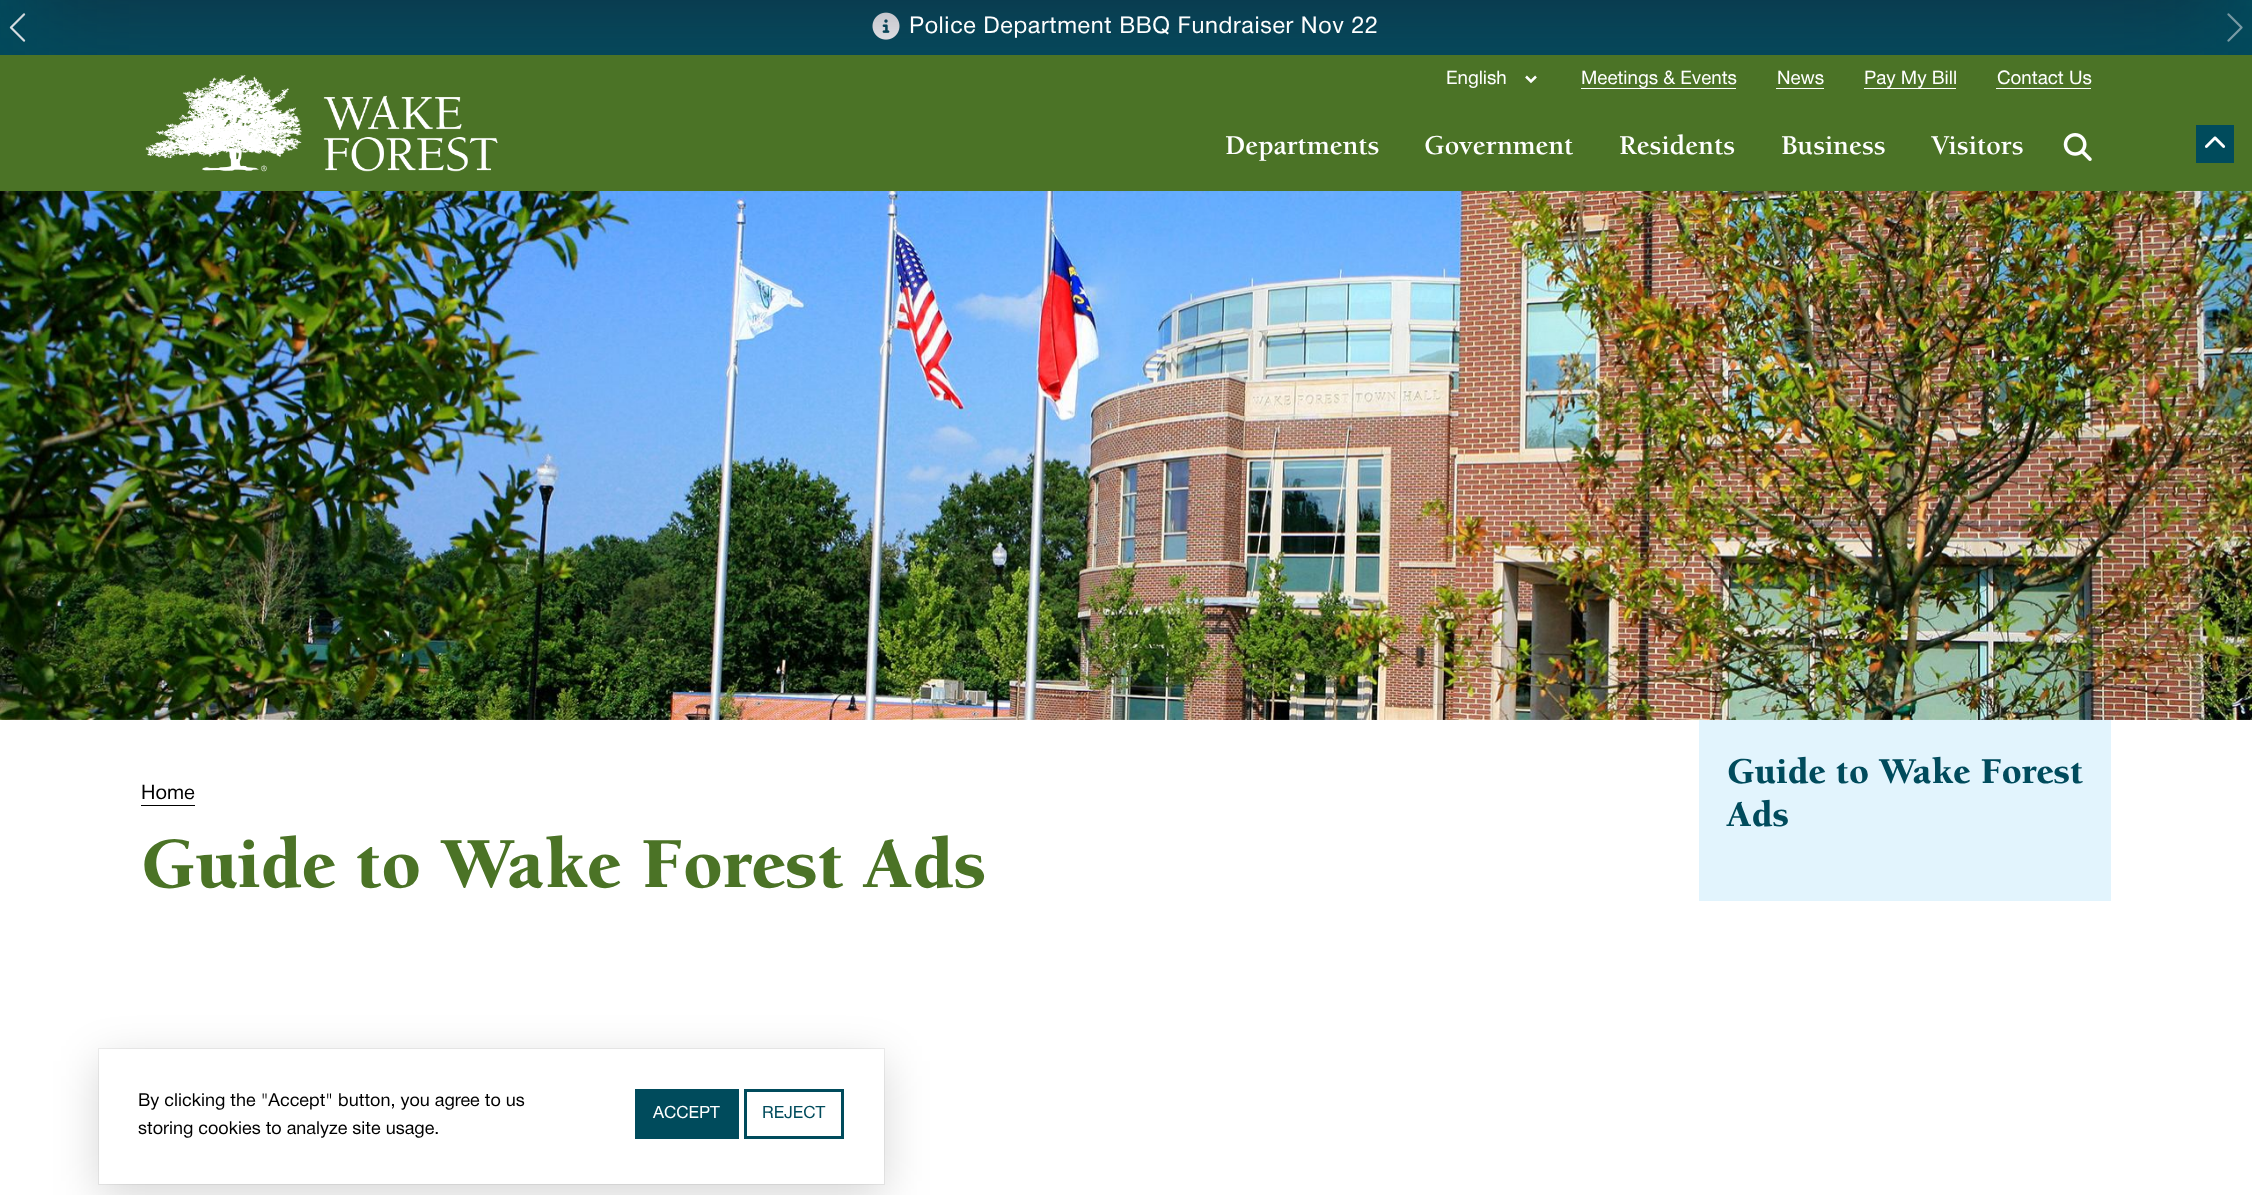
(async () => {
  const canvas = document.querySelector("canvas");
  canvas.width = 2252;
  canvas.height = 1195;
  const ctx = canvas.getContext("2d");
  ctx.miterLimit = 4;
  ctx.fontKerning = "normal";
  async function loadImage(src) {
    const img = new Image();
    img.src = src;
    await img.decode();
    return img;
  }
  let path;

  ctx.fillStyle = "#ffffff";
  ctx.fillRect(0, 0, 2252, 1195);
  ctx.fillStyle = "#004b5c";
  ctx.fillRect(0, 0, 2252, 55);
  ctx.drawImage(await loadImage("img/1.png"), 9, 13, 17, 29);
  ctx.drawImage(await loadImage("img/2.png"), 872, 12, 28, 28);
  ctx.drawImage(await loadImage("img/3.png"), 2227, 13, 16, 29);
  ctx.fillStyle = "rgba(0, 0, 0, 0.3)";
  ctx.filter = "blur(37.5px)";
  ctx.beginPath();
  ctx.rect(38, -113, 2177, 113);
  ctx.fill();
  ctx.filter = "none";
  ctx.drawImage(await loadImage("img/7.png"), 0, 191, 2252, 529);
  ctx.fillStyle = "rgba(50, 50, 93, 0.25)";
  ctx.filter = "blur(62.5px)";
  ctx.beginPath();
  ctx.rect(25, -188, 2203, 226);
  ctx.fill();
  ctx.filter = "none";
  ctx.fillStyle = "#4b7326";
  ctx.fillRect(0, 55, 2252, 136);
  ctx.fillStyle = "#004b5c";
  ctx.fillRect(2196, 125, 38, 38);
  ctx.drawImage(await loadImage("img/4.png"), 2205, 136, 21, 12);
  ctx.drawImage(await loadImage("img/5.png"), 145, 75, 353, 97);
  path = new Path2D("M1526 76.5L1531 81.5L1536 76.5");
  ctx.strokeStyle = "#ffffff";
  ctx.lineWidth = 2.5;
  ctx.stroke(path);
  for (const [x, y, w, h, color] of [
    [1581, 88, 155, 1, "#ffffff"],
    [1776, 88, 48, 1, "#ffffff"],
    [1864, 88, 92, 1, "#ffffff"],
    [1996, 88, 95, 1, "#ffffff"],
  ]) {
    ctx.fillStyle = color;
    ctx.fillRect(x, y, w, h);
  }
  ctx.drawImage(await loadImage("img/6.png"), 2063, 133, 29, 28);
  ctx.fillStyle = "#000000";
  ctx.fillRect(141, 805, 54, 1);
  ctx.fillStyle = "#e2f4fd";
  ctx.fillRect(1699, 720, 412, 181);
  ctx.strokeStyle = "#f0f0f0";
  ctx.lineWidth = 1;
  ctx.strokeRect(98.5, 1048.5, 786, 136);
  ctx.save();
  path = new Path2D("M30 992H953V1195H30ZM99 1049H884V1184H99Z");
  ctx.clip(path, "evenodd");
  ctx.fillStyle = "rgba(0, 0, 0, 0.16)";
  ctx.filter = "blur(22.5px)";
  ctx.beginPath();
  ctx.rect(99, 1061, 785, 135);
  ctx.fill();
  ctx.filter = "none";
  ctx.restore();
  ctx.fillStyle = "rgba(255, 255, 255, 0.75)";
  ctx.fillRect(99, 1070, 785, 114);
  ctx.fillStyle = "#004b5c";
  ctx.fillRect(635, 1089, 104, 50);
  ctx.strokeStyle = "#004b5c";
  ctx.lineWidth = 3;
  ctx.strokeRect(745.5, 1090.5, 97, 47);
  ctx.letterSpacing = "0.6px";
  ctx.font = "23.25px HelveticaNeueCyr";
  ctx.fillStyle = "#ffffff";
  ctx.fillText("Police Department BBQ Fundraiser Nov 22", 909, 33);
  ctx.letterSpacing = "0px";
  ctx.font = "18.75px HelveticaNeueCyr";
  for (const [text, x, y] of [
    ["English", 1446, 84],
    ["Meetings & Events", 1581, 84],
    ["News", 1777, 84],
    ["Pay My Bill", 1864, 84],
    ["Contact Us", 1997, 84],
  ]) {
    ctx.fillText(text, x, y);
  }
  ctx.font = "bold 28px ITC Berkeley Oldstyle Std";
  for (const [text, x, y] of [
    ["Departments", 1225, 154],
    ["Government", 1424, 154],
    ["Residents", 1619, 154],
    ["Business", 1781, 154],
    ["Visitors", 1931, 154],
  ]) {
    ctx.fillText(text, x, y);
  }
  ctx.font = "20px HelveticaNeueCyr";
  ctx.fillStyle = "#000000";
  ctx.fillText("Home", 141, 799);
  ctx.font = "900 73.5px ITC Berkeley Oldstyle Std";
  ctx.fillStyle = "#4b7326";
  ctx.fillText("Guide to Wake Forest Ads", 141, 887);
  ctx.font = "900 37.25px ITC Berkeley Oldstyle Std";
  ctx.fillStyle = "#004b5c";
  ctx.fillText("Guide to Wake Forest", 1727, 783);
  ctx.fillText("Ads", 1727, 826);
  ctx.font = "18px HelveticaNeueCyr";
  ctx.fillStyle = "#000000";
  ctx.fillText("By clicking the \"Accept\" button, you agree to us", 138, 1106);
  ctx.fillText("storing cookies to analyze site usage.", 138, 1134);
  ctx.font = "17px HelveticaNeueCyr";
  ctx.fillStyle = "#ffffff";
  ctx.fillText("ACCEPT", 653, 1118);
  ctx.fillStyle = "#004b5c";
  ctx.fillText("REJECT", 762, 1118);
})();
